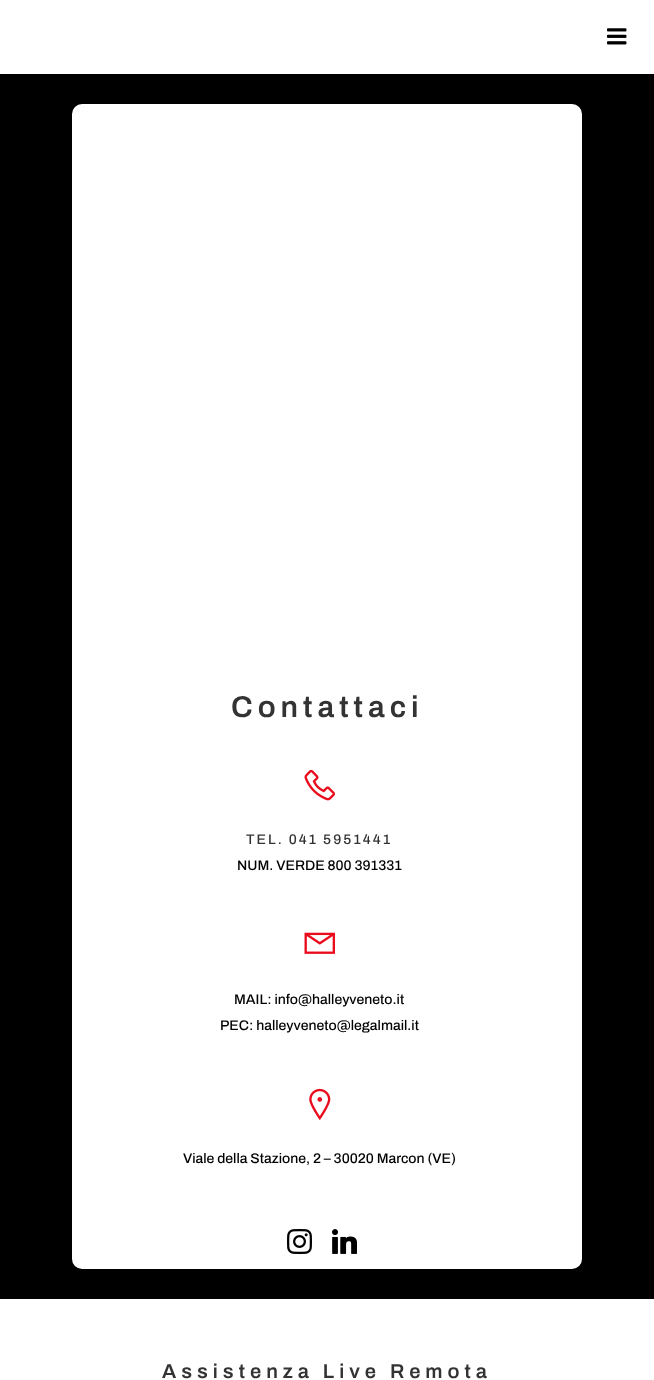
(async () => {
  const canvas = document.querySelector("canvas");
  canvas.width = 654;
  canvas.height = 1380;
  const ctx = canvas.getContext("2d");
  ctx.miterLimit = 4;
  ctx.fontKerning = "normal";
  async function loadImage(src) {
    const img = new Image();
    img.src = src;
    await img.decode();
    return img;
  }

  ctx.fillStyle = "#ffffff";
  ctx.fillRect(0, 0, 654, 1380);
  ctx.drawImage(await loadImage("img/1.png"), 607, 28, 20, 17);
  ctx.fillStyle = "#000000";
  ctx.fillRect(0, 74, 654, 1225);
  ctx.fillStyle = "#ffffff";
  ctx.beginPath();
  ctx.roundRect(72, 104, 510, 1165, 10);
  ctx.fill();
  ctx.drawImage(await loadImage("img/2.png"), 304, 769, 31, 32);
  ctx.drawImage(await loadImage("img/3.png"), 304, 932, 31, 22);
  ctx.drawImage(await loadImage("img/4.png"), 309, 1088, 22, 33);
  ctx.drawImage(await loadImage("img/5.png"), 287, 1229, 25, 25);
  ctx.drawImage(await loadImage("img/6.png"), 332, 1229, 25, 25);
  ctx.letterSpacing = "5px";
  ctx.font = "600 30px Archivo";
  ctx.fillStyle = "#333333";
  ctx.fillText("Contattaci", 231, 717);
  ctx.letterSpacing = "2px";
  ctx.font = "500 14px Archivo";
  ctx.fillText("TEL. 041 5951441", 246, 844);
  ctx.letterSpacing = "0px";
  ctx.fillStyle = "#000000";
  for (const [text, x, y] of [
    ["NUM. VERDE 800 391331", 237, 870],
    ["MAIL: info@halleyveneto.it", 234, 1004],
    ["PEC: halleyveneto@legalmail.it", 220, 1030],
    ["Viale della Stazione, 2 – 30020 Marcon (VE)", 183, 1163],
  ]) {
    ctx.fillText(text, x, y);
  }
  ctx.letterSpacing = "5px";
  ctx.font = "600 20px Archivo";
  ctx.fillStyle = "#333333";
  ctx.fillText("Assistenza Live Remota", 162, 1378);
})();
